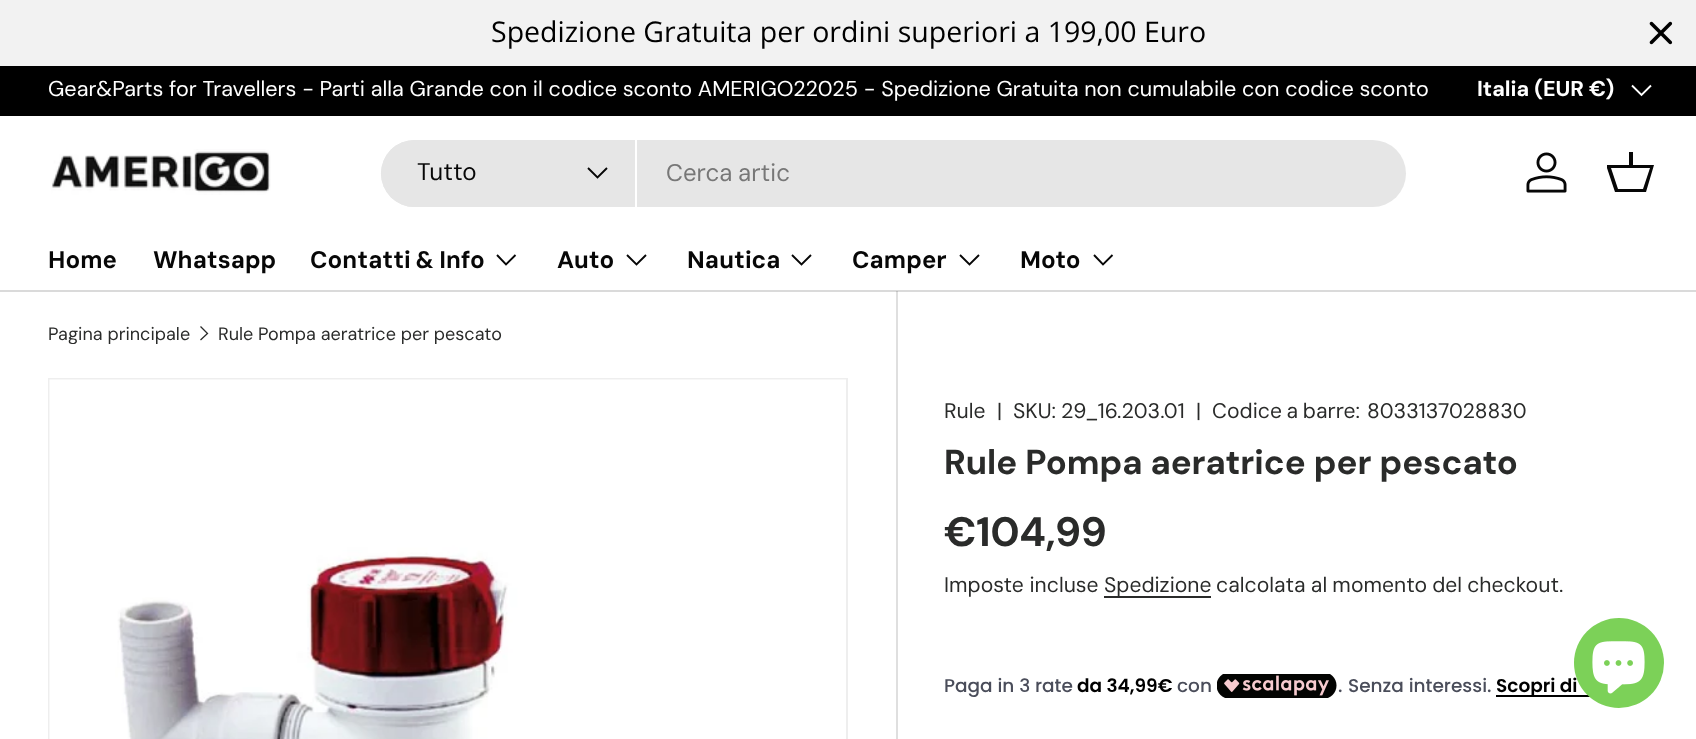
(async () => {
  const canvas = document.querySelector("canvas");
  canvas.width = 1696;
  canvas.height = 739;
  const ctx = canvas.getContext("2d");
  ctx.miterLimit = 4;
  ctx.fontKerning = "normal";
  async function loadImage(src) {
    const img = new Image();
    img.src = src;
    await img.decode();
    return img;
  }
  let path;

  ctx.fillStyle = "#ffffff";
  ctx.fillRect(0, 0, 1696, 739);
  ctx.fillStyle = "#dadada";
  ctx.fillRect(0, 290, 1696, 2);
  ctx.fillStyle = "#f2f2f2";
  ctx.fillRect(0, 0, 1696, 66);
  ctx.drawImage(await loadImage("img/1.png"), 1649, 21, 24, 24);
  ctx.fillStyle = "#000000";
  ctx.fillRect(0, 66, 1696, 50);
  path = new Path2D("M1651 85.5L1641.5 95L1632 85.5");
  ctx.strokeStyle = "#ffffff";
  ctx.lineWidth = 1.9;
  ctx.stroke(path);
  ctx.drawImage(await loadImage("img/2.png"), 51, 149, 220, 46);
  ctx.fillStyle = "#e6e6e6";
  ctx.beginPath();
  ctx.roundRect(381, 140, 1025, 67, 33.5);
  ctx.fill();
  ctx.beginPath();
  ctx.roundRect(381, 140, 255, 67, [33.5, 0, 0, 33.5]);
  ctx.fill();
  ctx.fillStyle = "#ffffff";
  ctx.fillRect(635, 140, 2, 67);
  path = new Path2D("M607 168L597.5 177.5L588 168");
  ctx.strokeStyle = "#070707";
  ctx.stroke(path);
  ctx.drawImage(await loadImage("img/3.png"), 1526, 152, 41, 41);
  ctx.save();
  ctx.beginPath();
  ctx.rect(1607, 149, 48, 48);
  ctx.clip();
  ctx.fillStyle = "#070707";
  path = new Path2D("M1629 165V152H1633V165H1654L1646 192H1615L1606 165ZM1611 168L1618 189H1643L1650 168Z");
  ctx.fill(path);
  ctx.restore();
  path = new Path2D("M515.5 255L506 264.5L497 255");
  ctx.stroke(path);
  path = new Path2D("M646 255L636.5 264.5L627 255");
  ctx.stroke(path);
  path = new Path2D("M811 255L801.5 264.5L792 255");
  ctx.stroke(path);
  path = new Path2D("M979 255L969.5 264.5L960 255");
  ctx.stroke(path);
  path = new Path2D("M1112.5 255L1103 264.5L1094 255");
  ctx.stroke(path);
  path = new Path2D("M200.5 326.5L207.5 333.5L200.5 340");
  ctx.strokeStyle = "#2a2b2a";
  ctx.lineWidth = 1.3;
  ctx.stroke(path);
  ctx.strokeStyle = "#eeeeee";
  ctx.lineWidth = 2;
  ctx.strokeRect(49, 379, 798, 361);
  ctx.drawImage(await loadImage("img/4.png"), 49, 379, 797, 360);
  for (const [x, y, w, h, color] of [
    [896, 291, 2, 448, "#dfdfdf"],
    [896, 291, 2, 1, "#bfbfbf"],
    [1104, 596, 107, 2, "#2a2b2a"],
  ]) {
    ctx.fillStyle = color;
    ctx.fillRect(x, y, w, h);
  }
  ctx.drawImage(await loadImage("img/5.png"), 1217, 674, 120, 24);
  ctx.fillStyle = "#000000";
  ctx.fillRect(1496, 695, 94, 2);
  ctx.font = "28.5px Open Sans";
  ctx.fillText("Spedizione Gratuita per ordini superiori a 199,00 Euro", 491, 42);
  ctx.font = "21.6px 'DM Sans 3'";
  ctx.fillStyle = "#ffffff";
  ctx.fillText("Gear&Parts for Travellers - Parti alla Grande con il codice sconto AMERIGO22025 - Spedizione Gratuita non cumulabile con codice sconto", 48, 96);
  ctx.font = "bold 21.6px 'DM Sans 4'";
  ctx.fillText("Italia (EUR €)", 1477, 96);
  ctx.font = "24px 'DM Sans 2'";
  ctx.fillStyle = "#070707";
  ctx.fillText("Tutto", 417, 180);
  ctx.wordSpacing = "-1px";
  ctx.fillStyle = "#777777";
  ctx.fillText("Cerca artic", 666, 181);
  ctx.wordSpacing = "0px";
  ctx.font = "bold 24px 'DM Sans 3'";
  ctx.fillStyle = "#070707";
  ctx.fillText("Home", 48, 268);
  ctx.fillText("Whatsapp", 153, 268);
  ctx.wordSpacing = "-1px";
  ctx.fillText("Contatti & Info", 310, 268);
  ctx.wordSpacing = "0px";
  for (const [text, x, y] of [
    ["Auto", 557, 268],
    ["Nautica", 687, 268],
    ["Camper", 852, 268],
    ["Moto", 1020, 268],
  ]) {
    ctx.fillText(text, x, y);
  }
  ctx.save();
  ctx.beginPath();
  ctx.rect(48, 326, 143, 18);
  ctx.clip();
  ctx.font = "18px DM Sans";
  ctx.fillStyle = "#2a2b2a";
  ctx.fillText("Pagina principale", 48, 340);
  ctx.restore();
  ctx.font = "18px DM Sans";
  ctx.fillStyle = "#2a2b2a";
  ctx.fillText("Rule Pompa aeratrice per pescato", 218, 340);
  ctx.font = "21.1px 'DM Sans 2'";
  for (const [text, x, y] of [
    ["Rule", 944, 418],
    ["|", 997, 418],
    ["SKU:", 1013, 418],
    ["29_16.203.01", 1061, 418],
    ["|", 1196, 418],
  ]) {
    ctx.fillText(text, x, y);
  }
  ctx.wordSpacing = "-1px";
  ctx.fillText("Codice a barre:", 1212, 418);
  ctx.wordSpacing = "0px";
  ctx.fillText("8033137028830", 1367, 418);
  ctx.font = "bold 34.7px DM Sans";
  ctx.fillText("Rule Pompa aeratrice per pescato", 944, 474);
  ctx.font = "bold 41px 'DM Sans 2'";
  ctx.fillText("€104,99", 944, 546);
  ctx.font = "21.1px 'DM Sans 2'";
  ctx.fillText("Imposte incluse", 944, 592);
  ctx.fillText("Spedizione", 1104, 592);
  ctx.wordSpacing = "-0.5px";
  ctx.fillText("calcolata al momento del checkout.", 1216, 592);
  ctx.wordSpacing = "0px";
  ctx.font = "500 18.5px Poppins";
  ctx.fillStyle = "#4a4d5a";
  ctx.fillText("Paga in 3 rate", 944, 692);
  ctx.font = "600 18.5px Poppins";
  ctx.fillStyle = "#000000";
  ctx.fillText("da 34,99€", 1077, 692);
  ctx.font = "500 18.5px Poppins";
  ctx.fillStyle = "#4a4d5a";
  for (const [text, x, y] of [
    ["con", 1177, 692],
    [".", 1338, 692],
    ["Senza interessi.", 1348, 692],
  ]) {
    ctx.fillText(text, x, y);
  }
  ctx.font = "600 18.5px Poppins";
  ctx.fillStyle = "#000000";
  ctx.fillText("Scopri di", 1496, 692);
  ctx.fillStyle = "#7cd158";
  ctx.beginPath();
  ctx.arc(1619, 663, 45, 0, Math.PI * 2);
  ctx.fill();
  ctx.drawImage(await loadImage("img/6.png"), 1592, 641, 53, 53);
})();
